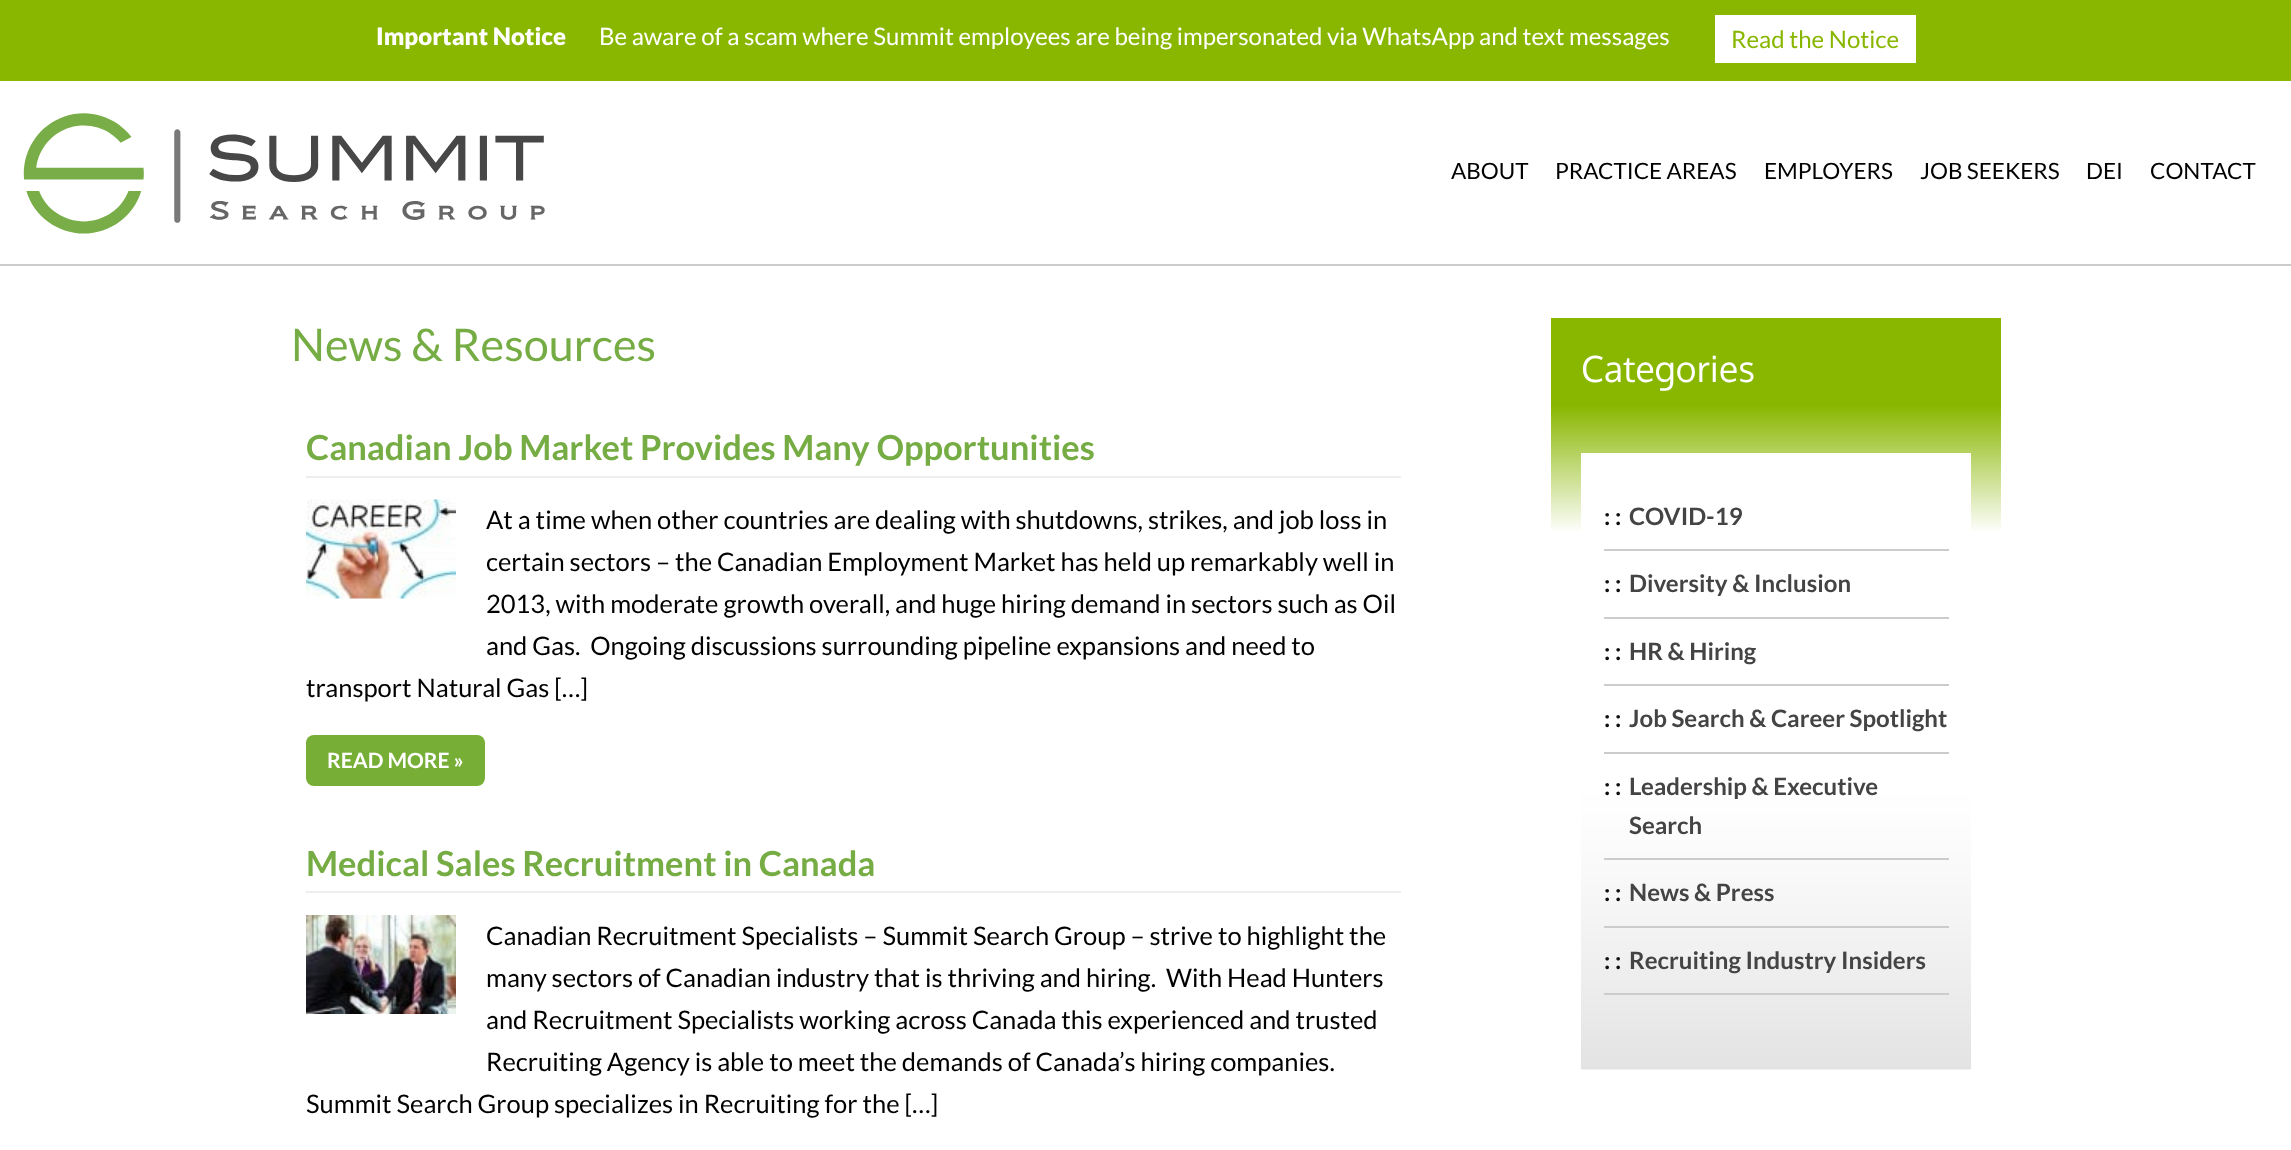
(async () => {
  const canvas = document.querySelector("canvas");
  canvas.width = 2291;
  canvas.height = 1150;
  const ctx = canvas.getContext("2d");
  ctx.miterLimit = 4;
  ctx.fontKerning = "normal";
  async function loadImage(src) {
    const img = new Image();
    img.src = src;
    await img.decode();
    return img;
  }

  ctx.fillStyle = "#ffffff";
  ctx.fillRect(0, 0, 2291, 1150);
  for (const [x, y, w, h, color] of [
    [0, 0, 2291, 81, "#89b700"],
    [1715, 15, 201, 48, "#ffffff"],
    [0, 264, 2291, 2, "#cccccc"],
  ]) {
    ctx.fillStyle = color;
    ctx.fillRect(x, y, w, h);
  }
  ctx.drawImage(await loadImage("img/1.png"), 23, 113, 522, 121);
  ctx.fillStyle = "#eeeeee";
  ctx.fillRect(306, 476, 1095, 2);
  ctx.drawImage(await loadImage("img/2.png"), 306, 499, 150, 100);
  ctx.fillStyle = "#77ae36";
  ctx.beginPath();
  ctx.roundRect(306, 735, 179, 51, 8);
  ctx.fill();
  ctx.fillStyle = "#eeeeee";
  ctx.fillRect(306, 891, 1095, 2);
  ctx.drawImage(await loadImage("img/3.png"), 306, 915, 150, 99);
  ctx.drawImage(await loadImage("img/4.png"), 1551, 318, 450, 213);
  ctx.drawImage(await loadImage("img/5.png"), 1581, 453, 390, 617);
  for (const [x, y, w, h, color] of [
    [1604, 549, 345, 2, "#cccccc"],
    [1604, 617, 345, 2, "#cccccc"],
    [1604, 684, 345, 2, "#cccccc"],
    [1604, 752, 345, 2, "#cccccc"],
    [1604, 858, 345, 2, "#cccccc"],
    [1604, 926, 345, 2, "#cccccc"],
    [1604, 993, 345, 2, "#cccccc"],
  ]) {
    ctx.fillStyle = color;
    ctx.fillRect(x, y, w, h);
  }
  ctx.font = "900 24px Lato";
  ctx.fillStyle = "#ffffff";
  ctx.fillText("Important Notice", 376, 45);
  ctx.font = "24px Lato";
  ctx.fillText("Be aware of a scam where Summit employees are being impersonated via WhatsApp and text messages", 599, 45);
  ctx.fillStyle = "#89b700";
  ctx.fillText("Read the Notice", 1731, 48);
  ctx.font = "22.5px Lato";
  ctx.fillStyle = "#000000";
  for (const [text, x, y] of [
    ["ABOUT", 1451, 179],
    ["PRACTICE AREAS", 1555, 179],
    ["EMPLOYERS", 1764, 179],
    ["JOB SEEKERS", 1920, 179],
    ["DEI", 2086, 179],
    ["CONTACT", 2150, 179],
  ]) {
    ctx.fillText(text, x, y);
  }
  ctx.font = "45px Lato";
  ctx.fillStyle = "#76ac44";
  ctx.fillText("News & Resources", 291, 361);
  ctx.font = "bold 34.5px Lato";
  ctx.fillText("Canadian Job Market Provides Many Opportunities", 306, 460);
  ctx.font = "25.5px Lato";
  ctx.fillStyle = "#000000";
  for (const [text, x, y] of [
    ["At a time when other countries are dealing with shutdowns, strikes, and job loss in", 486, 529],
    ["certain sectors – the Canadian Employment Market has held up remarkably well in", 486, 571],
    ["2013, with moderate growth overall, and huge hiring demand in sectors such as Oil", 486, 613],
    ["and Gas.  Ongoing discussions surrounding pipeline expansions and need to", 486, 655],
    ["transport Natural Gas […]", 306, 697],
  ]) {
    ctx.fillText(text, x, y);
  }
  ctx.font = "bold 21px Lato";
  ctx.fillStyle = "#ffffff";
  ctx.fillText("READ MORE »", 327, 768);
  ctx.font = "bold 34.5px Lato";
  ctx.fillStyle = "#76ac44";
  ctx.fillText("Medical Sales Recruitment in Canada", 306, 876);
  ctx.font = "25.5px Lato";
  ctx.fillStyle = "#000000";
  for (const [text, x, y] of [
    ["Canadian Recruitment Specialists – Summit Search Group – strive to highlight the", 486, 945],
    ["many sectors of Canadian industry that is thriving and hiring.  With Head Hunters", 486, 987],
    ["and Recruitment Specialists working across Canada this experienced and trusted", 486, 1029],
    ["Recruiting Agency is able to meet the demands of Canada’s hiring companies.", 486, 1071],
    ["Summit Search Group specializes in Recruiting for the […]", 306, 1113],
  ]) {
    ctx.fillText(text, x, y);
  }
  ctx.font = "36px Oxygen";
  ctx.fillStyle = "#ffffff";
  ctx.fillText("Categories", 1581, 382);
  ctx.font = "bold 24px Lato";
  ctx.fillStyle = "#0f0f0f";
  ctx.fillText(": :", 1604, 525);
  ctx.fillStyle = "#444444";
  ctx.fillText("COVID-19", 1629, 525);
  ctx.fillStyle = "#0f0f0f";
  ctx.fillText(": :", 1604, 592);
  ctx.fillStyle = "#444444";
  ctx.fillText("Diversity & Inclusion", 1629, 592);
  ctx.fillStyle = "#0f0f0f";
  ctx.fillText(": :", 1604, 660);
  ctx.fillStyle = "#444444";
  ctx.fillText("HR & Hiring", 1629, 660);
  ctx.fillStyle = "#0f0f0f";
  ctx.fillText(": :", 1604, 727);
  ctx.fillStyle = "#444444";
  ctx.fillText("Job Search & Career Spotlight", 1629, 727);
  ctx.fillStyle = "#0f0f0f";
  ctx.fillText(": :", 1604, 795);
  ctx.fillStyle = "#444444";
  ctx.fillText("Leadership & Executive", 1629, 795);
  ctx.fillText("Search", 1629, 834);
  ctx.fillStyle = "#0f0f0f";
  ctx.fillText(": :", 1604, 901);
  ctx.fillStyle = "#444444";
  ctx.fillText("News & Press", 1629, 901);
  ctx.fillStyle = "#0f0f0f";
  ctx.fillText(": :", 1604, 969);
  ctx.fillStyle = "#444444";
  ctx.fillText("Recruiting Industry Insiders", 1629, 969);
})();
